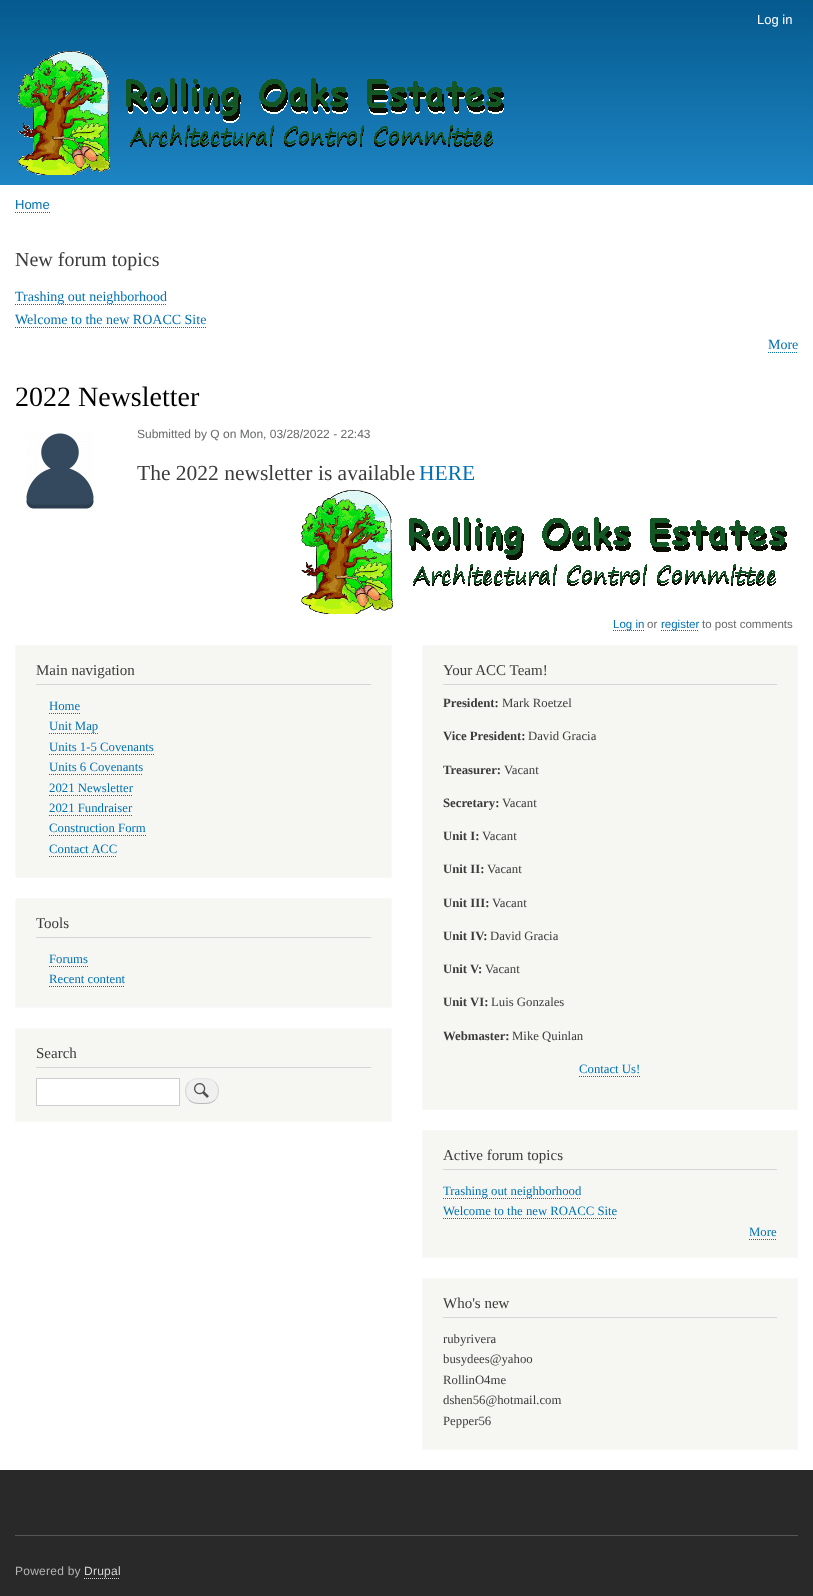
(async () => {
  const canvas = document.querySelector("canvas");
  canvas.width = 813;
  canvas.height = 1596;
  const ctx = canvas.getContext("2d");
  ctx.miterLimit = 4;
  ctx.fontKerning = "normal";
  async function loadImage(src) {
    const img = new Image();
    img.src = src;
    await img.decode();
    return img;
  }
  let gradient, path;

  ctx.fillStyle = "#ffffff";
  ctx.fillRect(0, 0, 813, 1596);
  gradient = ctx.createLinearGradient(407, 0, 407, 185);
  gradient.addColorStop(0, "#055a8e");
  gradient.addColorStop(1, "#1d84c3");
  ctx.fillStyle = gradient;
  ctx.fillRect(0, 0, 813, 185);
  ctx.drawImage(await loadImage("img/1.png"), 18, 51, 486, 124);
  path = new Path2D("M15 212.5H50");
  ctx.strokeStyle = "#0071b3";
  ctx.setLineDash([1, 1]);
  ctx.stroke(path);
  path = new Path2D("M15 304.5H167");
  ctx.stroke(path);
  path = new Path2D("M15 327.5H206");
  ctx.stroke(path);
  path = new Path2D("M768 352.5H798");
  ctx.stroke(path);
  ctx.drawImage(await loadImage("img/2.png"), 26, 433, 68, 76);
  ctx.drawImage(await loadImage("img/3.png"), 301, 490, 486, 124);
  path = new Path2D("M613 630.5H644");
  ctx.stroke(path);
  path = new Path2D("M661 630.5H699");
  ctx.stroke(path);
  ctx.fillStyle = "#f6f6f2";
  ctx.beginPath();
  ctx.rect(15.5, 645.5, 376, 232);
  ctx.fill();
  ctx.strokeStyle = "#f9f9f9";
  ctx.setLineDash([]);
  ctx.stroke();
  ctx.fillStyle = "#d6d6d6";
  ctx.fillRect(36, 684, 335, 1);
  path = new Path2D("M49 713.5H80");
  ctx.strokeStyle = "#0071b3";
  ctx.setLineDash([1, 1]);
  ctx.stroke(path);
  path = new Path2D("M49 733.5H98");
  ctx.stroke(path);
  path = new Path2D("M49 754.5H154");
  ctx.stroke(path);
  path = new Path2D("M49 774.5H143");
  ctx.stroke(path);
  path = new Path2D("M49 795.5H133");
  ctx.stroke(path);
  path = new Path2D("M49 815.5H132");
  ctx.stroke(path);
  path = new Path2D("M49 835.5H146");
  ctx.stroke(path);
  path = new Path2D("M49 856.5H117");
  ctx.stroke(path);
  ctx.fillStyle = "#f6f6f2";
  ctx.beginPath();
  ctx.rect(15.5, 898.5, 376, 109);
  ctx.fill();
  ctx.strokeStyle = "#f9f9f9";
  ctx.setLineDash([]);
  ctx.stroke();
  ctx.fillStyle = "#d6d6d6";
  ctx.fillRect(36, 937, 335, 1);
  path = new Path2D("M49 966.5H88");
  ctx.strokeStyle = "#0071b3";
  ctx.setLineDash([1, 1]);
  ctx.stroke(path);
  path = new Path2D("M49 986.5H125");
  ctx.stroke(path);
  ctx.fillStyle = "#f6f6f2";
  ctx.beginPath();
  ctx.rect(15.5, 1028.5, 376, 93);
  ctx.fill();
  ctx.strokeStyle = "#f9f9f9";
  ctx.setLineDash([]);
  ctx.stroke();
  ctx.fillStyle = "#d6d6d6";
  ctx.fillRect(36, 1067, 335, 1);
  ctx.fillStyle = "#ffffff";
  ctx.beginPath();
  ctx.rect(36.5, 1078.5, 143, 27);
  ctx.fill();
  ctx.strokeStyle = "#cccccc";
  ctx.stroke();
  ctx.fillStyle = "#f0f0f0";
  ctx.beginPath();
  ctx.roundRect(185, 1078, 34, 26, 13);
  ctx.fill();
  ctx.drawImage(await loadImage("img/4.png"), 194, 1083, 15, 15);
  path = new Path2D("M189 1082C193 1078.5 197 1078.5 202 1078.5C207 1078.5 211 1078.5 215 1082");
  ctx.strokeStyle = "#e4e4e4";
  ctx.stroke(path);
  path = new Path2D("M215 1082C219.5 1087 219.5 1095 215 1100");
  ctx.strokeStyle = "#d2d2d2";
  ctx.stroke(path);
  path = new Path2D("M215 1100C211 1103.5 207 1103.5 202 1103.5C197 1103.5 193 1103.5 189 1100");
  ctx.strokeStyle = "#b4b4b4";
  ctx.stroke(path);
  path = new Path2D("M189 1100C184.5 1095 184.5 1087 189 1082");
  ctx.strokeStyle = "#d2d2d2";
  ctx.stroke(path);
  ctx.fillStyle = "#f6f6f2";
  ctx.beginPath();
  ctx.rect(422.5, 645.5, 375, 464);
  ctx.fill();
  ctx.strokeStyle = "#f9f9f9";
  ctx.stroke();
  ctx.fillStyle = "#d6d6d6";
  ctx.fillRect(443, 684, 334, 1);
  path = new Path2D("M579 1076.5H640");
  ctx.strokeStyle = "#0071b3";
  ctx.setLineDash([1, 1]);
  ctx.stroke(path);
  ctx.fillStyle = "#f6f6f2";
  ctx.beginPath();
  ctx.rect(422.5, 1130.5, 375, 127);
  ctx.fill();
  ctx.strokeStyle = "#f9f9f9";
  ctx.setLineDash([]);
  ctx.stroke();
  ctx.fillStyle = "#d6d6d6";
  ctx.fillRect(443, 1169, 334, 1);
  path = new Path2D("M443 1198.5H581");
  ctx.strokeStyle = "#0071b3";
  ctx.setLineDash([1, 1]);
  ctx.stroke(path);
  path = new Path2D("M443 1218.5H617");
  ctx.stroke(path);
  path = new Path2D("M749 1239.5H777");
  ctx.stroke(path);
  ctx.fillStyle = "#f6f6f2";
  ctx.beginPath();
  ctx.rect(422.5, 1278.5, 375, 171);
  ctx.fill();
  ctx.strokeStyle = "#f9f9f9";
  ctx.setLineDash([]);
  ctx.stroke();
  for (const [x, y, w, h, color] of [
    [443, 1317, 334, 1, "#d6d6d6"],
    [0, 1470, 813, 126, "#292929"],
    [15, 1535, 783, 1, "#555555"],
  ]) {
    ctx.fillStyle = color;
    ctx.fillRect(x, y, w, h);
  }
  path = new Path2D("M84 1578.5H120");
  ctx.strokeStyle = "#d4d4d4";
  ctx.setLineDash([1, 1]);
  ctx.stroke(path);
  ctx.font = "13px Liberation Sans";
  ctx.fillStyle = "#fffeff";
  ctx.fillText("Log in", 757, 24);
  ctx.fillStyle = "#0071b3";
  ctx.fillText("Home", 15, 209);
  ctx.font = "20px Liberation Serif";
  ctx.fillStyle = "#3b3b3b";
  ctx.fillText("New forum topics", 15, 266);
  ctx.font = "14px Liberation Serif";
  ctx.fillStyle = "#0071b3";
  for (const [text, x, y] of [
    ["Trashing out neighborhood", 15, 301],
    ["Welcome to the new ROACC Site", 15, 324],
    ["More", 768, 349],
  ]) {
    ctx.fillText(text, x, y);
  }
  ctx.font = "28px Liberation Serif";
  ctx.fillStyle = "#000000";
  ctx.fillText("2022 Newsletter", 15, 406);
  ctx.font = "12px Liberation Sans";
  ctx.fillStyle = "#68696b";
  ctx.fillText("Submitted by Q on Mon, 03/28/2022 - 22:43", 137, 438);
  ctx.font = "21.5px Liberation Serif";
  ctx.fillStyle = "#3b3b3b";
  ctx.fillText("The 2022 newsletter is available", 137, 480);
  ctx.fillStyle = "#0071b3";
  ctx.fillText("HERE", 419, 480);
  ctx.font = "11.5px Liberation Sans";
  ctx.fillText("Log in", 613, 628);
  ctx.fillStyle = "#68696b";
  ctx.fillText("or", 647, 628);
  ctx.fillStyle = "#0071b3";
  ctx.fillText("register", 661, 628);
  ctx.fillStyle = "#68696b";
  ctx.fillText("to post comments", 702, 628);
  ctx.font = "15px Liberation Serif";
  ctx.fillStyle = "#3b3b3b";
  ctx.fillText("Main navigation", 36, 675);
  ctx.font = "12.75px Liberation Serif";
  ctx.fillStyle = "#0071b3";
  for (const [text, x, y] of [
    ["Home", 49, 710],
    ["Unit Map", 49, 730],
    ["Units 1-5 Covenants", 49, 751],
    ["Units 6 Covenants", 49, 771],
    ["2021 Newsletter", 49, 792],
    ["2021 Fundraiser", 49, 812],
    ["Construction Form", 49, 832],
    ["Contact ACC", 49, 853],
  ]) {
    ctx.fillText(text, x, y);
  }
  ctx.font = "15px Liberation Serif";
  ctx.fillStyle = "#3b3b3b";
  ctx.fillText("Tools", 36, 928);
  ctx.font = "12.75px Liberation Serif";
  ctx.fillStyle = "#0071b3";
  ctx.fillText("Forums", 49, 963);
  ctx.fillText("Recent content", 49, 983);
  ctx.font = "15px Liberation Serif";
  ctx.fillStyle = "#3b3b3b";
  ctx.fillText("Search", 36, 1058);
  ctx.fillText("Your ACC Team!", 443, 675);
  ctx.font = "bold 12.75px Liberation Serif";
  ctx.fillText("President:", 443, 707);
  ctx.font = "12.75px Liberation Serif";
  ctx.fillText("Mark Roetzel", 502, 707);
  ctx.font = "bold 12.75px Liberation Serif";
  ctx.fillText("Vice President:", 443, 740);
  ctx.font = "12.75px Liberation Serif";
  ctx.fillText("David Gracia", 528, 740);
  ctx.font = "bold 12.75px Liberation Serif";
  ctx.fillText("Treasurer:", 443, 774);
  ctx.font = "12.75px Liberation Serif";
  ctx.fillText("Vacant", 504, 774);
  ctx.font = "bold 12.75px Liberation Serif";
  ctx.fillText("Secretary:", 443, 807);
  ctx.font = "12.75px Liberation Serif";
  ctx.fillText("Vacant", 502, 807);
  ctx.font = "bold 12.75px Liberation Serif";
  ctx.fillText("Unit I:", 443, 840);
  ctx.font = "12.75px Liberation Serif";
  ctx.fillText("Vacant", 482, 840);
  ctx.font = "bold 12.75px Liberation Serif";
  ctx.fillText("Unit II:", 443, 873);
  ctx.font = "12.75px Liberation Serif";
  ctx.fillText("Vacant", 487, 873);
  ctx.font = "bold 12.75px Liberation Serif";
  ctx.fillText("Unit III:", 443, 907);
  ctx.font = "12.75px Liberation Serif";
  ctx.fillText("Vacant", 492, 907);
  ctx.font = "bold 12.75px Liberation Serif";
  ctx.fillText("Unit IV:", 443, 940);
  ctx.font = "12.75px Liberation Serif";
  ctx.fillText("David Gracia", 490, 940);
  ctx.font = "bold 12.75px Liberation Serif";
  ctx.fillText("Unit V:", 443, 973);
  ctx.font = "12.75px Liberation Serif";
  ctx.fillText("Vacant", 485, 973);
  ctx.font = "bold 12.75px Liberation Serif";
  ctx.fillText("Unit VI:", 443, 1006);
  ctx.font = "12.75px Liberation Serif";
  ctx.fillText("Luis Gonzales", 491, 1006);
  ctx.font = "bold 12.75px Liberation Serif";
  ctx.fillText("Webmaster:", 443, 1040);
  ctx.font = "12.75px Liberation Serif";
  ctx.fillText("Mike Quinlan", 512, 1040);
  ctx.fillStyle = "#0071b3";
  ctx.fillText("Contact Us!", 579, 1073);
  ctx.font = "15px Liberation Serif";
  ctx.fillStyle = "#3b3b3b";
  ctx.fillText("Active forum topics", 443, 1160);
  ctx.font = "12.75px Liberation Serif";
  ctx.fillStyle = "#0071b3";
  for (const [text, x, y] of [
    ["Trashing out neighborhood", 443, 1195],
    ["Welcome to the new ROACC Site", 443, 1215],
    ["More", 749, 1236],
  ]) {
    ctx.fillText(text, x, y);
  }
  ctx.font = "15px Liberation Serif";
  ctx.fillStyle = "#3b3b3b";
  ctx.fillText("Who's new", 443, 1308);
  ctx.font = "12.75px Liberation Serif";
  for (const [text, x, y] of [
    ["rubyrivera", 443, 1343],
    ["busydees@yahoo", 443, 1363],
    ["RollinO4me", 443, 1384],
    ["dshen56@hotmail.com", 443, 1404],
    ["Pepper56", 443, 1425],
  ]) {
    ctx.fillText(text, x, y);
  }
  ctx.letterSpacing = "0.25px";
  ctx.font = "12px Liberation Sans";
  ctx.fillStyle = "#b4b4b4";
  ctx.fillText("Powered by", 15, 1575);
  ctx.fillStyle = "#d4d4d4";
  ctx.fillText("Drupal", 84, 1575);
})();
